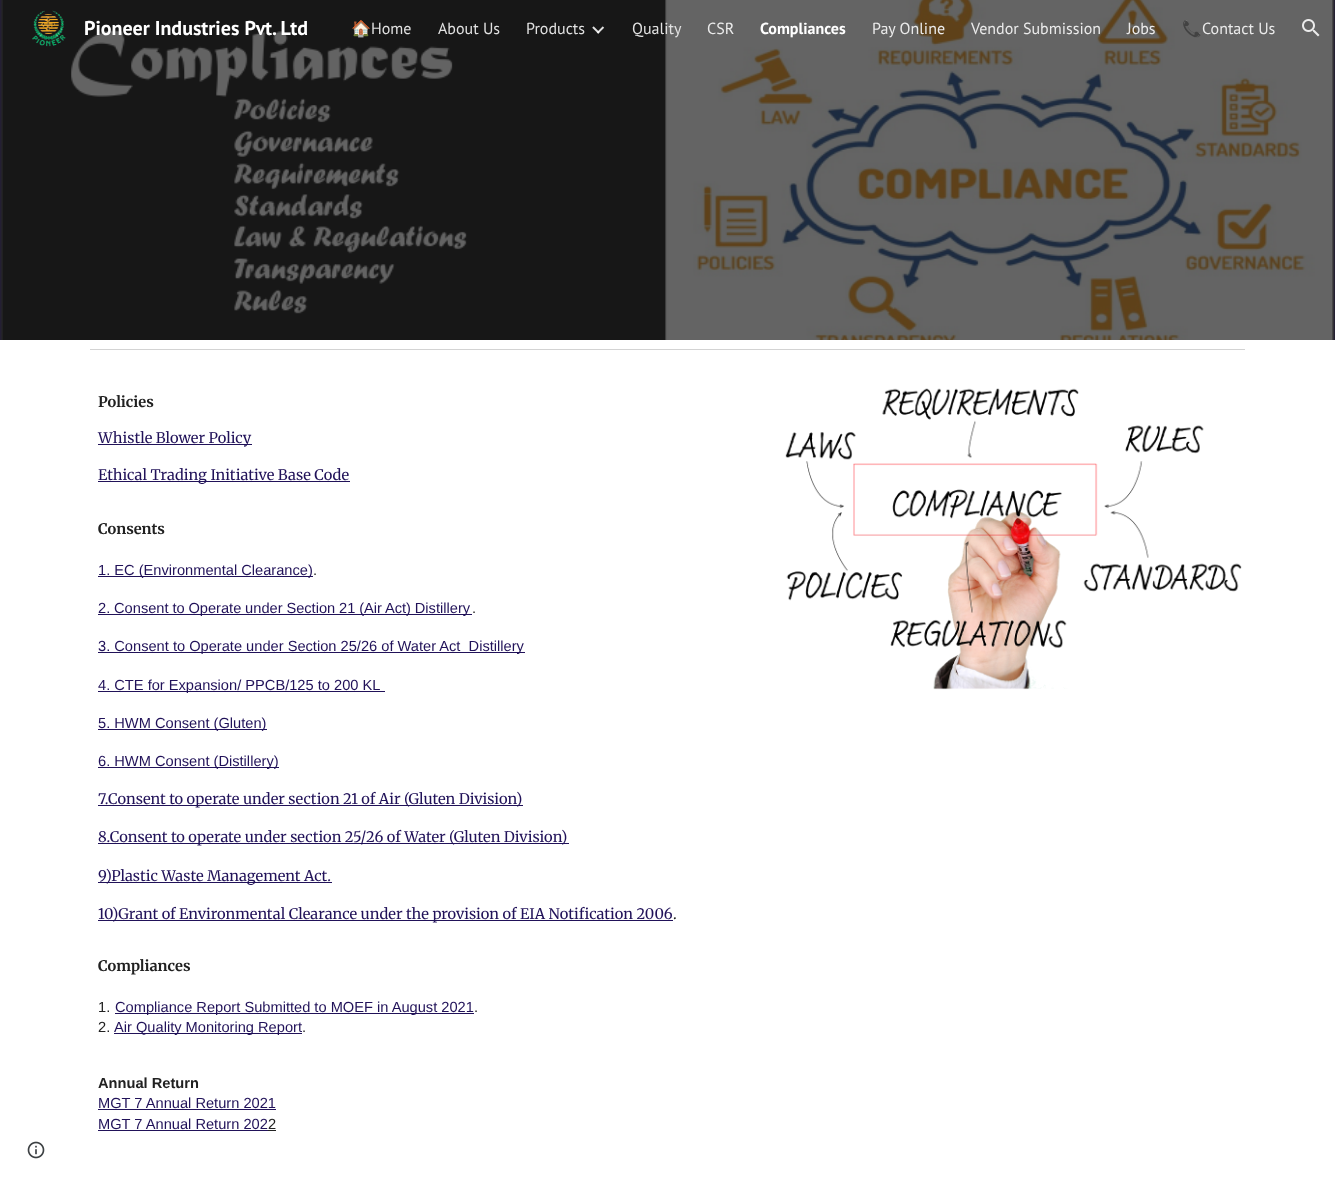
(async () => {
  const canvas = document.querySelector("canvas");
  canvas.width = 1335;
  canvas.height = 1184;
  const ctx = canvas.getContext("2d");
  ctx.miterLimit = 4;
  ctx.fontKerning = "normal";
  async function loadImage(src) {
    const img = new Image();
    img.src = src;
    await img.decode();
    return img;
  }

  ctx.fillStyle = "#ffffff";
  ctx.fillRect(0, 0, 1335, 1184);
  ctx.fillStyle = "#231e38";
  ctx.fillRect(0, 0, 1335, 340);
  ctx.drawImage(await loadImage("img/4.png"), 0, 0, 1335, 340);
  ctx.drawImage(await loadImage("img/1.png"), 32, 10, 34, 37);
  ctx.drawImage(await loadImage("img/2.png"), 592, 26, 13, 8);
  ctx.drawImage(await loadImage("img/3.png"), 1302, 19, 18, 18);
  for (const [x, y, w, h, color] of [
    [90, 349, 1155, 1, "#d3d3d3"],
    [98, 444, 154, 1, "#211259"],
    [98, 481, 252, 1, "#211259"],
    [98, 576, 215, 1, "#211259"],
    [98, 614, 374, 1, "#211259"],
    [98, 652, 427, 1, "#211259"],
    [98, 691, 287, 1, "#211259"],
    [98, 729, 169, 1, "#211259"],
    [98, 767, 181, 1, "#211259"],
    [98, 805, 425, 1, "#211259"],
    [98, 843, 471, 1, "#211259"],
    [98, 882, 234, 1, "#211259"],
    [98, 920, 575, 1, "#211259"],
    [115, 1013, 359, 1, "#211259"],
    [114, 1033, 188, 1, "#211259"],
    [98, 1109, 178, 1, "#211259"],
    [98, 1130, 170, 1, "#211259"],
    [268, 1130, 8, 1, "#222222"],
  ]) {
    ctx.fillStyle = color;
    ctx.fillRect(x, y, w, h);
  }
  ctx.drawImage(await loadImage("img/5.png"), 785, 388, 457, 302);
  ctx.drawImage(await loadImage("img/6.png"), 27, 1141, 18, 18);
  ctx.font = "bold 20px PT Sans";
  ctx.fillStyle = "#ffffff";
  ctx.fillText("Pioneer Industries Pvt. Ltd", 84, 35);
  ctx.font = "16px Noto Color Emoji";
  ctx.fillStyle = "#e1e1e1";
  ctx.fillText("🏠", 351, 34);
  ctx.font = "16px PT Sans";
  for (const [text, x, y] of [
    ["Home", 371, 34],
    ["About Us", 438, 34],
    ["Products", 526, 34],
    ["Quality", 632, 34],
  ]) {
    ctx.fillText(text, x, y);
  }
  ctx.fillStyle = "#ebebeb";
  ctx.fillText("CSR", 707, 34);
  ctx.font = "bold 16px PT Sans";
  ctx.fillStyle = "#ffffff";
  ctx.fillText("Compliances", 760, 34);
  ctx.font = "16px PT Sans";
  ctx.fillStyle = "#ebebeb";
  for (const [text, x, y] of [
    ["Pay Online", 872, 34],
    ["Vendor Submission", 971, 34],
    ["Jobs", 1127, 34],
  ]) {
    ctx.fillText(text, x, y);
  }
  ctx.save();
  ctx.beginPath();
  ctx.rect(1182, 18, 93, 20);
  ctx.clip();
  ctx.font = "16px Noto Color Emoji";
  ctx.fillText("📞", 1182, 34);
  ctx.restore();
  ctx.fillText("Contact Us", 1202, 34);
  ctx.font = "bold 14.65px Merriweather";
  ctx.fillStyle = "#212121";
  ctx.fillText("Policies", 98, 407);
  ctx.font = "14.65px Merriweather";
  ctx.fillStyle = "#211259";
  ctx.fillText("Whistle Blower Policy", 98, 443);
  ctx.fillText("Ethical Trading Initiative Base Code", 98, 480);
  ctx.font = "bold 14.65px Merriweather";
  ctx.fillStyle = "#212121";
  ctx.fillText("Consents", 98, 534);
  ctx.font = "14.65px Liberation Sans";
  ctx.fillStyle = "#211259";
  ctx.fillText("1. EC (Environmental Clearance)", 98, 575);
  ctx.fillStyle = "#212121";
  ctx.fillText(".", 313, 575);
  ctx.wordSpacing = "-0.25px";
  ctx.fillStyle = "#211259";
  ctx.fillText("2. Consent to Operate under Section 21 (Air Act) Distillery", 98, 613);
  ctx.wordSpacing = "0px";
  ctx.fillStyle = "#212121";
  ctx.fillText(".", 472, 613);
  ctx.fillStyle = "#211259";
  for (const [text, x, y] of [
    ["3. Consent to Operate under Section 25/26 of Water Act  Distillery", 98, 651],
    ["4. CTE for Expansion/ PPCB/125 to 200 KL", 98, 690],
    ["5. HWM Consent (Gluten)", 98, 728],
    ["6. HWM Consent (Distillery)", 98, 766],
  ]) {
    ctx.fillText(text, x, y);
  }
  ctx.font = "14.65px Merriweather";
  for (const [text, x, y] of [
    ["7.", 98, 804],
    ["Consent to operate under section 21 of Air (Gluten Division)", 108, 804],
    ["8.Consent to operate under section 25/26 of Water (Gluten Division)", 98, 842],
    ["9)Plastic Waste Management Act.", 98, 881],
    ["10)Grant of Environmental Clearance under the provision of EIA Notification 2006", 98, 919],
  ]) {
    ctx.fillText(text, x, y);
  }
  ctx.fillStyle = "#212121";
  ctx.fillText(".", 673, 919);
  ctx.font = "bold 14.65px Merriweather";
  ctx.fillText("Compliances", 98, 971);
  ctx.font = "14.65px Liberation Sans";
  ctx.fillText("1.", 98, 1012);
  ctx.fillStyle = "#211259";
  ctx.fillText("Compliance Report Submitted to MOEF in August 2021", 115, 1012);
  ctx.fillStyle = "#212121";
  ctx.fillText(".", 474, 1012);
  ctx.fillText("2.", 98, 1032);
  ctx.fillStyle = "#211259";
  ctx.fillText("Air Quality Monitoring Report", 114, 1032);
  ctx.fillStyle = "#212121";
  ctx.fillText(".", 302, 1032);
  ctx.font = "bold 14.65px Liberation Sans";
  ctx.fillText("Annual Return", 98, 1088);
  ctx.font = "14.65px Liberation Sans";
  ctx.fillStyle = "#211259";
  ctx.fillText("MGT 7 Annual Return 2021", 98, 1108);
  ctx.fillText("MGT 7 Annual Return 202", 98, 1129);
  ctx.fillStyle = "#212121";
  ctx.fillText("2", 268, 1129);
})();
